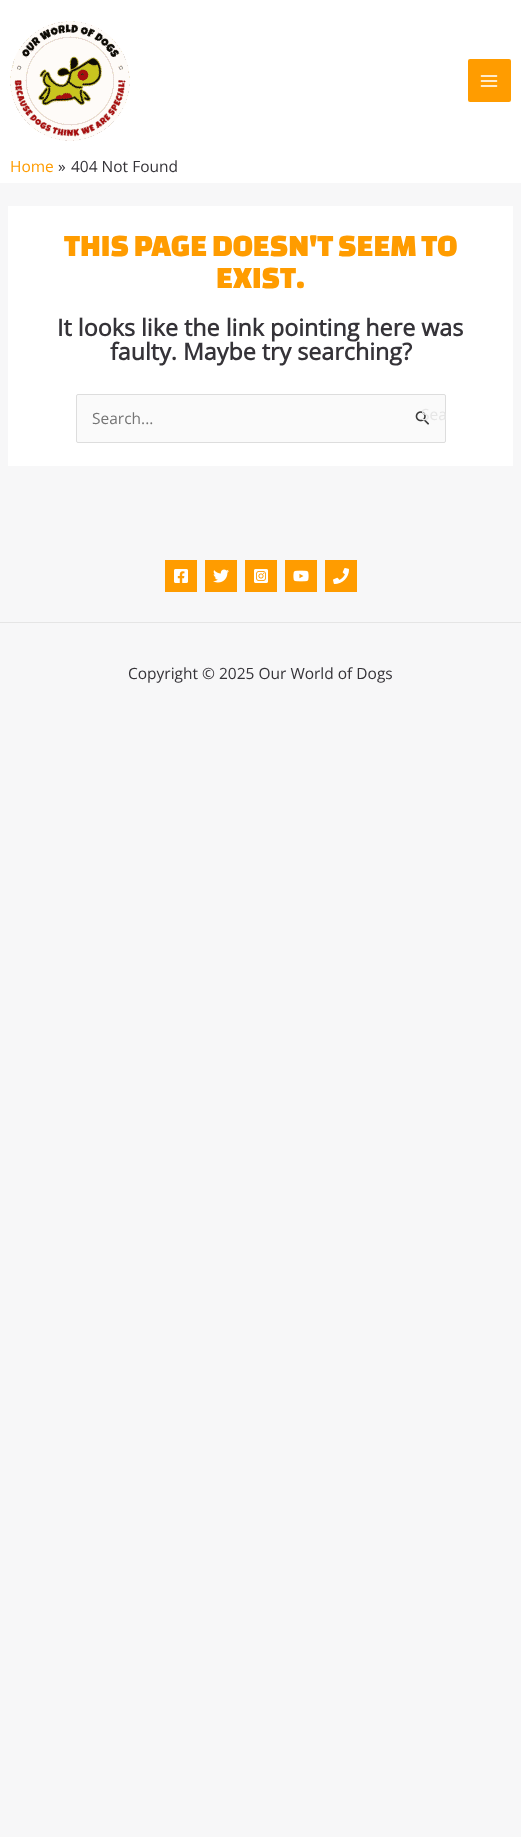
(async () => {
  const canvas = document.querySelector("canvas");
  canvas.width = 521;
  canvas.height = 1837;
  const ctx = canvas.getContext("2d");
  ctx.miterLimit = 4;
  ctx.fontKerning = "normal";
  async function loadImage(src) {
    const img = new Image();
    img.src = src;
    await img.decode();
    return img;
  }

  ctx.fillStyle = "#f7f7f8";
  ctx.fillRect(0, 0, 521, 1837);
  ctx.fillStyle = "#ffffff";
  ctx.fillRect(0, 0, 521, 183);
  ctx.drawImage(await loadImage("img/1.png"), 10, 21, 120, 120);
  ctx.fillStyle = "#ff9c00";
  ctx.beginPath();
  ctx.roundRect(468, 59, 43, 43, 2);
  ctx.fill();
  ctx.drawImage(await loadImage("img/2.png"), 480, 75, 18, 12);
  ctx.fillStyle = "#ffffff";
  ctx.fillRect(8, 206, 505, 260);
  ctx.fillStyle = "#fafafa";
  ctx.beginPath();
  ctx.roundRect(76.5, 394.5, 369, 48, 1.5);
  ctx.fill();
  ctx.strokeStyle = "#dddddd";
  ctx.stroke();
  ctx.drawImage(await loadImage("img/3.png"), 415, 411, 14, 14);
  ctx.fillStyle = "#ff9c00";
  ctx.fillRect(165, 560, 32, 32);
  ctx.drawImage(await loadImage("img/4.png"), 174, 569, 14, 14);
  ctx.fillRect(205, 560, 32, 32);
  ctx.drawImage(await loadImage("img/5.png"), 213, 569, 16, 14);
  ctx.fillRect(245, 560, 32, 32);
  ctx.drawImage(await loadImage("img/6.png"), 254, 569, 14, 14);
  ctx.fillRect(285, 560, 32, 32);
  ctx.drawImage(await loadImage("img/7.png"), 293, 570, 16, 12);
  ctx.fillRect(325, 560, 32, 32);
  ctx.drawImage(await loadImage("img/8.png"), 333, 568, 16, 16);
  ctx.fillStyle = "#e5e5e5";
  ctx.fillRect(0, 622, 521, 1);
  ctx.font = "15.5px Open Sans";
  ctx.fillStyle = "#ff9c00";
  ctx.fillText("Home", 10, 172);
  ctx.fillStyle = "#353338";
  ctx.fillText("»", 58, 172);
  ctx.fillText("404 Not Found", 71, 172);
  ctx.font = "32px Changa One";
  ctx.fillStyle = "#ff9c00";
  ctx.fillText("THIS PAGE DOESN'T SEEM TO", 64, 256);
  ctx.fillText("EXIST.", 216, 288);
  ctx.font = "bold 23.25px Open Sans";
  ctx.fillStyle = "#353338";
  ctx.fillText("It looks like the link pointing here was", 57, 336);
  ctx.fillText("faulty. Maybe try searching?", 110, 360);
  ctx.font = "15.5px Open Sans";
  ctx.fillStyle = "#757575";
  ctx.fillText("Search...", 92, 424);
  ctx.fillStyle = "#e6e6e6";
  ctx.fillText("Sea", 421, 420);
  ctx.fillStyle = "#353338";
  ctx.fillText("Copyright © 2025 Our World of Dogs", 128, 679);
})();
